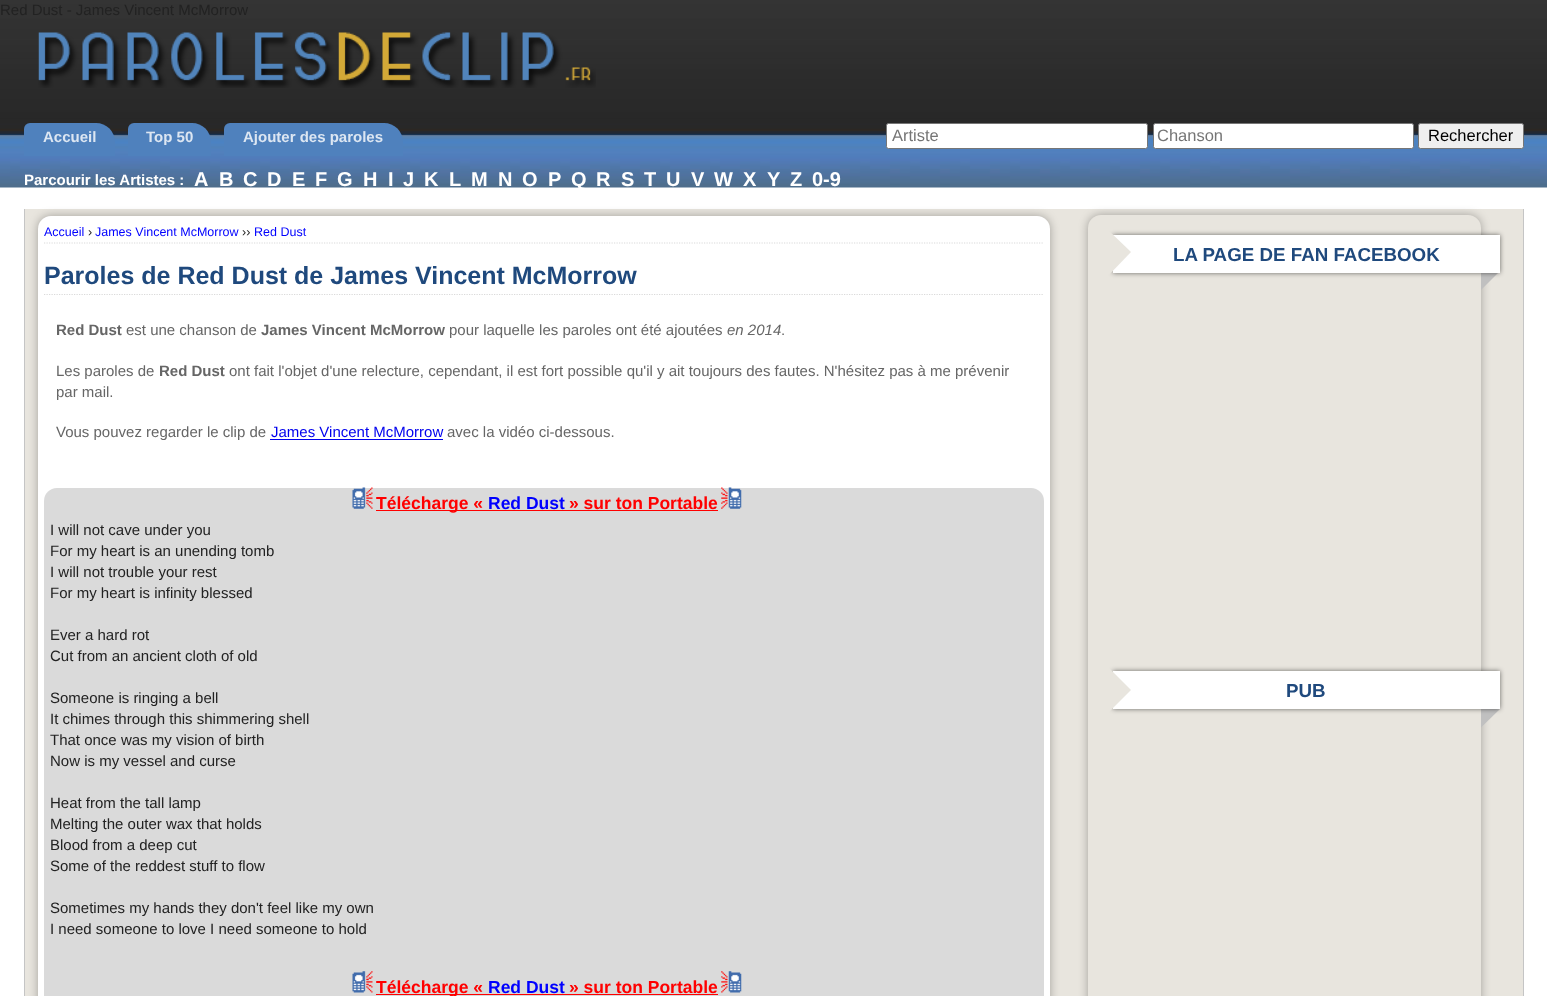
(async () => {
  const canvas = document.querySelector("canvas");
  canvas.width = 1547;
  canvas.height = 996;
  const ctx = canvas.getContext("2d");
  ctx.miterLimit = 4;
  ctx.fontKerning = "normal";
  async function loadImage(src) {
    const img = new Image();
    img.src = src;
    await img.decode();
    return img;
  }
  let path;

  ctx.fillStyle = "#ffffff";
  ctx.fillRect(0, 0, 1547, 996);
  ctx.drawImage(await loadImage("img/1.png"), 0, 0, 1547, 188);
  ctx.drawImage(await loadImage("img/2.png"), 38, 32, 558, 56);
  ctx.fillStyle = "#4f81bd";
  ctx.beginPath();
  ctx.roundRect(24, 123, 91, 33, [6, 19, 0, 0]);
  ctx.fill();
  ctx.beginPath();
  ctx.roundRect(128, 123, 83, 33, [6, 19, 0, 0]);
  ctx.fill();
  ctx.beginPath();
  ctx.roundRect(224, 123, 179, 33, [6, 19, 0, 0]);
  ctx.fill();
  ctx.fillStyle = "#ffffff";
  ctx.beginPath();
  ctx.roundRect(886.5, 123.5, 261, 25, 2);
  ctx.fill();
  ctx.strokeStyle = "#767676";
  ctx.stroke();
  ctx.beginPath();
  ctx.roundRect(1153.5, 123.5, 260, 25, 2);
  ctx.fill();
  ctx.stroke();
  ctx.fillStyle = "#efefef";
  ctx.beginPath();
  ctx.roundRect(1418.5, 123.5, 105, 25, 2);
  ctx.fill();
  ctx.stroke();
  for (const [x, y, w, h, color] of [
    [25, 209, 1498, 787, "#e8e5de"],
    [1523, 209, 1, 787, "#c5c5c5"],
    [24, 209, 1, 787, "#c5c5c5"],
  ]) {
    ctx.fillStyle = color;
    ctx.fillRect(x, y, w, h);
  }
  ctx.fillStyle = "rgba(0, 0, 0, 0.3)";
  ctx.filter = "blur(5px)";
  ctx.beginPath();
  ctx.roundRect(38, 216, 1012, 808, 13);
  ctx.fill();
  ctx.filter = "none";
  ctx.fillStyle = "#ffffff";
  ctx.beginPath();
  ctx.roundRect(38, 216, 1012, 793, 13);
  ctx.fill();
  path = new Path2D("M44 243H1044");
  ctx.strokeStyle = "#dadada";
  ctx.lineWidth = 1.2;
  ctx.setLineDash([1.25, 1.25]);
  ctx.stroke(path);
  path = new Path2D("M44 294.5H1044");
  ctx.stroke(path);
  ctx.fillStyle = "#0000ee";
  ctx.fillRect(270, 439, 173, 1);
  ctx.fillStyle = "#dadada";
  ctx.beginPath();
  ctx.roundRect(44, 488, 1000, 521, 13);
  ctx.fill();
  ctx.drawImage(await loadImage("img/3.png"), 352, 487, 21, 22);
  ctx.fillStyle = "#ff0000";
  ctx.fillRect(376, 510, 342, 1);
  ctx.drawImage(await loadImage("img/4.png"), 721, 487, 21, 22);
  ctx.drawImage(await loadImage("img/5.png"), 352, 971, 21, 22);
  ctx.fillRect(376, 994, 342, 1);
  ctx.drawImage(await loadImage("img/6.png"), 721, 971, 21, 22);
  ctx.fillStyle = "rgba(0, 0, 0, 0.3)";
  ctx.filter = "blur(5px)";
  ctx.beginPath();
  ctx.roundRect(1088, 215, 393, 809, 13);
  ctx.fill();
  ctx.filter = "none";
  ctx.fillStyle = "#e8e5de";
  ctx.beginPath();
  ctx.roundRect(1088, 215, 393, 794, 13);
  ctx.fill();
  ctx.fillStyle = "#c0c0c0";
  path = new Path2D("M1481 290V252.5L1500 271Z");
  ctx.fill(path);
  ctx.fillStyle = "rgba(0, 0, 0, 0.55)";
  ctx.filter = "blur(2.5px)";
  ctx.beginPath();
  ctx.rect(1113, 235, 387, 38);
  ctx.fill();
  ctx.filter = "none";
  ctx.fillStyle = "#ffffff";
  ctx.fillRect(1113, 235, 387, 38);
  ctx.fillStyle = "#e8e5de";
  path = new Path2D("M1106 278V228L1131 252Z");
  ctx.fill(path);
  ctx.fillStyle = "#c0c0c0";
  path = new Path2D("M1481 727.5V690L1500 709Z");
  ctx.fill(path);
  ctx.fillStyle = "rgba(0, 0, 0, 0.55)";
  ctx.filter = "blur(2.5px)";
  ctx.beginPath();
  ctx.rect(1113, 671, 387, 38);
  ctx.fill();
  ctx.filter = "none";
  ctx.fillStyle = "#ffffff";
  ctx.fillRect(1113, 671, 387, 38);
  ctx.fillStyle = "#e8e5de";
  path = new Path2D("M1106 715V665L1131 690Z");
  ctx.fill(path);
  ctx.font = "15px Liberation Sans";
  ctx.fillStyle = "#222222";
  ctx.fillText("Red Dust - James Vincent McMorrow", 0, 15);
  ctx.font = "bold 15px Liberation Sans";
  ctx.fillStyle = "#dce6f2";
  for (const [text, x, y] of [
    ["Accueil", 43, 142],
    ["Top 50", 146, 142],
    ["Ajouter des paroles", 243, 142],
  ]) {
    ctx.fillText(text, x, y);
  }
  ctx.font = "16.5px Liberation Sans";
  ctx.fillStyle = "#757575";
  ctx.fillText("Artiste", 892, 141);
  ctx.fillText("Chanson", 1157, 141);
  ctx.fillStyle = "#000000";
  ctx.fillText("Rechercher", 1428, 141);
  ctx.font = "bold 15px Liberation Sans";
  ctx.fillStyle = "#ffffff";
  ctx.fillText("Parcourir les Artistes :", 24, 185);
  ctx.font = "bold 20px Liberation Sans";
  for (const [text, x, y] of [
    ["A", 194, 186],
    ["B", 219, 186],
    ["C", 243, 186],
    ["D", 267, 186],
    ["E", 292, 186],
    ["F", 315, 186],
    ["G", 337, 186],
    ["H", 363, 186],
    ["I", 388, 186],
    ["J", 403, 186],
    ["K", 424, 186],
    ["L", 449, 186],
    ["M", 471, 186],
    ["N", 498, 186],
    ["O", 522, 186],
    ["P", 548, 186],
    ["Q", 571, 186],
    ["R", 596, 186],
    ["S", 621, 186],
    ["T", 644, 186],
    ["U", 666, 186],
    ["V", 691, 186],
    ["W", 714, 186],
    ["X", 743, 186],
    ["Y", 767, 186],
    ["Z", 790, 186],
    ["0-9", 812, 186],
  ]) {
    ctx.fillText(text, x, y);
  }
  ctx.font = "12.5px Liberation Sans";
  ctx.fillStyle = "#0000ff";
  ctx.fillText("Accueil", 44, 236);
  ctx.fillStyle = "#222222";
  ctx.fillText("›", 88, 236);
  ctx.fillStyle = "#0000ff";
  ctx.fillText("James Vincent McMorrow", 95, 236);
  ctx.fillStyle = "#222222";
  ctx.fillText("››", 242, 236);
  ctx.fillStyle = "#0000ff";
  ctx.fillText("Red Dust", 254, 236);
  ctx.font = "bold 25px Liberation Sans";
  ctx.fillStyle = "#1f497d";
  ctx.fillText("Paroles de Red Dust de James Vincent McMorrow", 44, 284);
  ctx.font = "bold 15px Liberation Sans";
  ctx.fillStyle = "#666666";
  ctx.fillText("Red Dust", 56, 335);
  ctx.font = "15px Liberation Sans";
  ctx.fillText("est une chanson de", 126, 335);
  ctx.font = "bold 15px Liberation Sans";
  ctx.fillText("James Vincent McMorrow", 261, 335);
  ctx.font = "15px Liberation Sans";
  ctx.fillText("pour laquelle les paroles ont été ajoutées", 449, 335);
  ctx.font = "italic 15px Liberation Sans";
  ctx.fillText("en 2014", 727, 335);
  ctx.font = "15px Liberation Sans";
  ctx.fillText(".", 781, 335);
  ctx.fillText("Les paroles de", 56, 376);
  ctx.font = "bold 15px Liberation Sans";
  ctx.fillText("Red Dust", 159, 376);
  ctx.font = "15px Liberation Sans";
  for (const [text, x, y] of [
    ["ont fait l'objet d'une relecture, cependant, il est fort possible qu'il y ait toujours des fautes. N'hésitez pas à me prévenir", 229, 376],
    ["par mail.", 56, 397],
    ["Vous pouvez regarder le clip de", 56, 437],
  ]) {
    ctx.fillText(text, x, y);
  }
  ctx.fillStyle = "#0000ee";
  ctx.fillText("James Vincent McMorrow", 271, 437);
  ctx.fillStyle = "#666666";
  ctx.fillText("avec la vidéo ci-dessous.", 447, 437);
  ctx.font = "bold 17.5px Liberation Sans";
  ctx.fillStyle = "#ff0000";
  ctx.fillText("Télécharge «", 376, 509);
  ctx.fillStyle = "#0000ff";
  ctx.fillText("Red Dust", 488, 509);
  ctx.fillStyle = "#ff0000";
  ctx.fillText("» sur ton Portable", 569, 509);
  ctx.font = "15px Liberation Sans";
  ctx.fillStyle = "#222222";
  for (const [text, x, y] of [
    ["I will not cave under you", 50, 535],
    ["For my heart is an unending tomb", 50, 556],
    ["I will not trouble your rest", 50, 577],
    ["For my heart is infinity blessed", 50, 598],
    ["Ever a hard rot", 50, 640],
    ["Cut from an ancient cloth of old", 50, 661],
    ["Someone is ringing a bell", 50, 703],
    ["It chimes through this shimmering shell", 50, 724],
    ["That once was my vision of birth", 50, 745],
    ["Now is my vessel and curse", 50, 766],
    ["Heat from the tall lamp", 50, 808],
    ["Melting the outer wax that holds", 50, 829],
    ["Blood from a deep cut", 50, 850],
    ["Some of the reddest stuff to flow", 50, 871],
    ["Sometimes my hands they don't feel like my own", 50, 913],
    ["I need someone to love I need someone to hold", 50, 934],
  ]) {
    ctx.fillText(text, x, y);
  }
  ctx.font = "bold 17.5px Liberation Sans";
  ctx.fillStyle = "#ff0000";
  ctx.fillText("Télécharge «", 376, 993);
  ctx.fillStyle = "#0000ff";
  ctx.fillText("Red Dust", 488, 993);
  ctx.fillStyle = "#ff0000";
  ctx.fillText("» sur ton Portable", 569, 993);
  ctx.font = "bold 18.75px Liberation Sans";
  ctx.fillStyle = "#1f497d";
  ctx.fillText("LA PAGE DE FAN FACEBOOK", 1173, 261);
  ctx.fillText("PUB", 1286, 697);
})();
